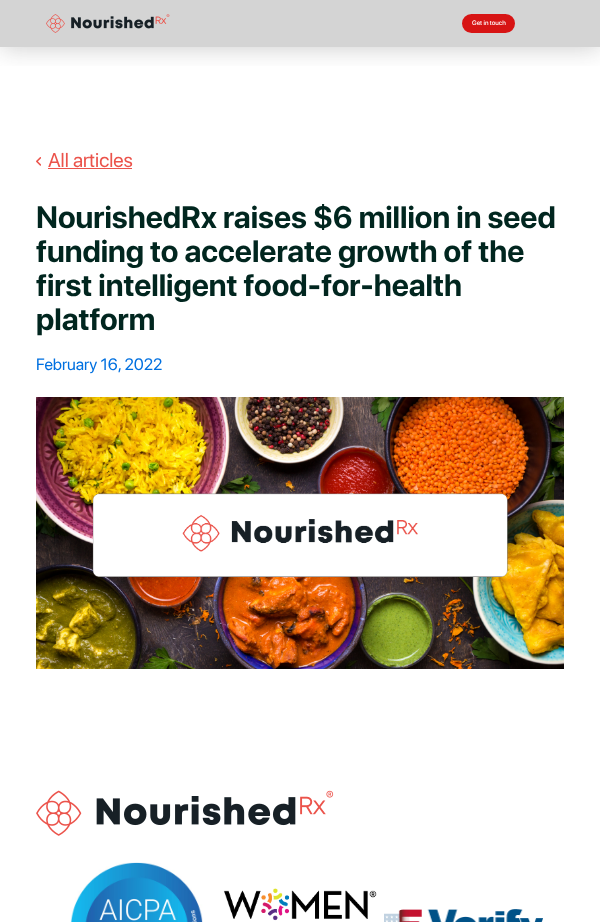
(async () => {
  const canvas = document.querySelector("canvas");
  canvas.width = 600;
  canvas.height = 922;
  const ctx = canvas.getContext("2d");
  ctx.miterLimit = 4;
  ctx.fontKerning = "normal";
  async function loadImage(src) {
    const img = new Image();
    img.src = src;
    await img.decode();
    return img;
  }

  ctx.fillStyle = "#ffffff";
  ctx.fillRect(0, 0, 600, 922);
  ctx.fillStyle = "#d4d4d4";
  ctx.fillRect(0, 0, 600, 47);
  ctx.save();
  ctx.beginPath();
  ctx.rect(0, 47, 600, 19);
  ctx.clip();
  ctx.fillStyle = "rgba(54, 54, 54, 0.25)";
  ctx.filter = "blur(12.5px)";
  ctx.beginPath();
  ctx.rect(1, 1, 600, 47);
  ctx.fill();
  ctx.filter = "none";
  ctx.restore();
  ctx.drawImage(await loadImage("img/1.png"), 46, 14, 124, 19);
  ctx.fillStyle = "#d71414";
  ctx.beginPath();
  ctx.roundRect(463, 15, 51, 17, 8.5);
  ctx.fill();
  ctx.strokeStyle = "#d71414";
  ctx.lineWidth = 2;
  ctx.stroke();
  ctx.drawImage(await loadImage("img/2.png"), 36, 157, 5, 9);
  ctx.fillStyle = "#eb534b";
  ctx.fillRect(48, 168, 84, 1);
  ctx.drawImage(await loadImage("img/3.png"), 36, 397, 528, 272);
  ctx.drawImage(await loadImage("img/4.png"), 36, 790, 298, 46);
  ctx.drawImage(await loadImage("img/5.png"), 70, 862, 133, 60);
  ctx.drawImage(await loadImage("img/6.png"), 223, 888, 154, 33);
  ctx.drawImage(await loadImage("img/7.png"), 384, 909, 159, 13);
  ctx.font = "500 6.5px SF Pro Display";
  ctx.fillStyle = "#ffffff";
  ctx.fillText("Get in touch", 472, 25);
  ctx.font = "20px SF Pro Display";
  ctx.fillStyle = "#eb534b";
  ctx.fillText("All articles", 48, 167);
  ctx.font = "bold 30.75px SF Pro Display";
  ctx.fillStyle = "#01261f";
  for (const [text, x, y] of [
    ["NourishedRx raises $6 million in seed", 36, 228],
    ["funding to accelerate growth of the", 36, 262],
    ["first intelligent food-for-health", 36, 296],
    ["platform", 36, 330],
  ]) {
    ctx.fillText(text, x, y);
  }
  ctx.font = "16.5px SF Pro Display";
  ctx.fillStyle = "#0070e0";
  ctx.fillText("February 16, 2022", 36, 370);
})();
